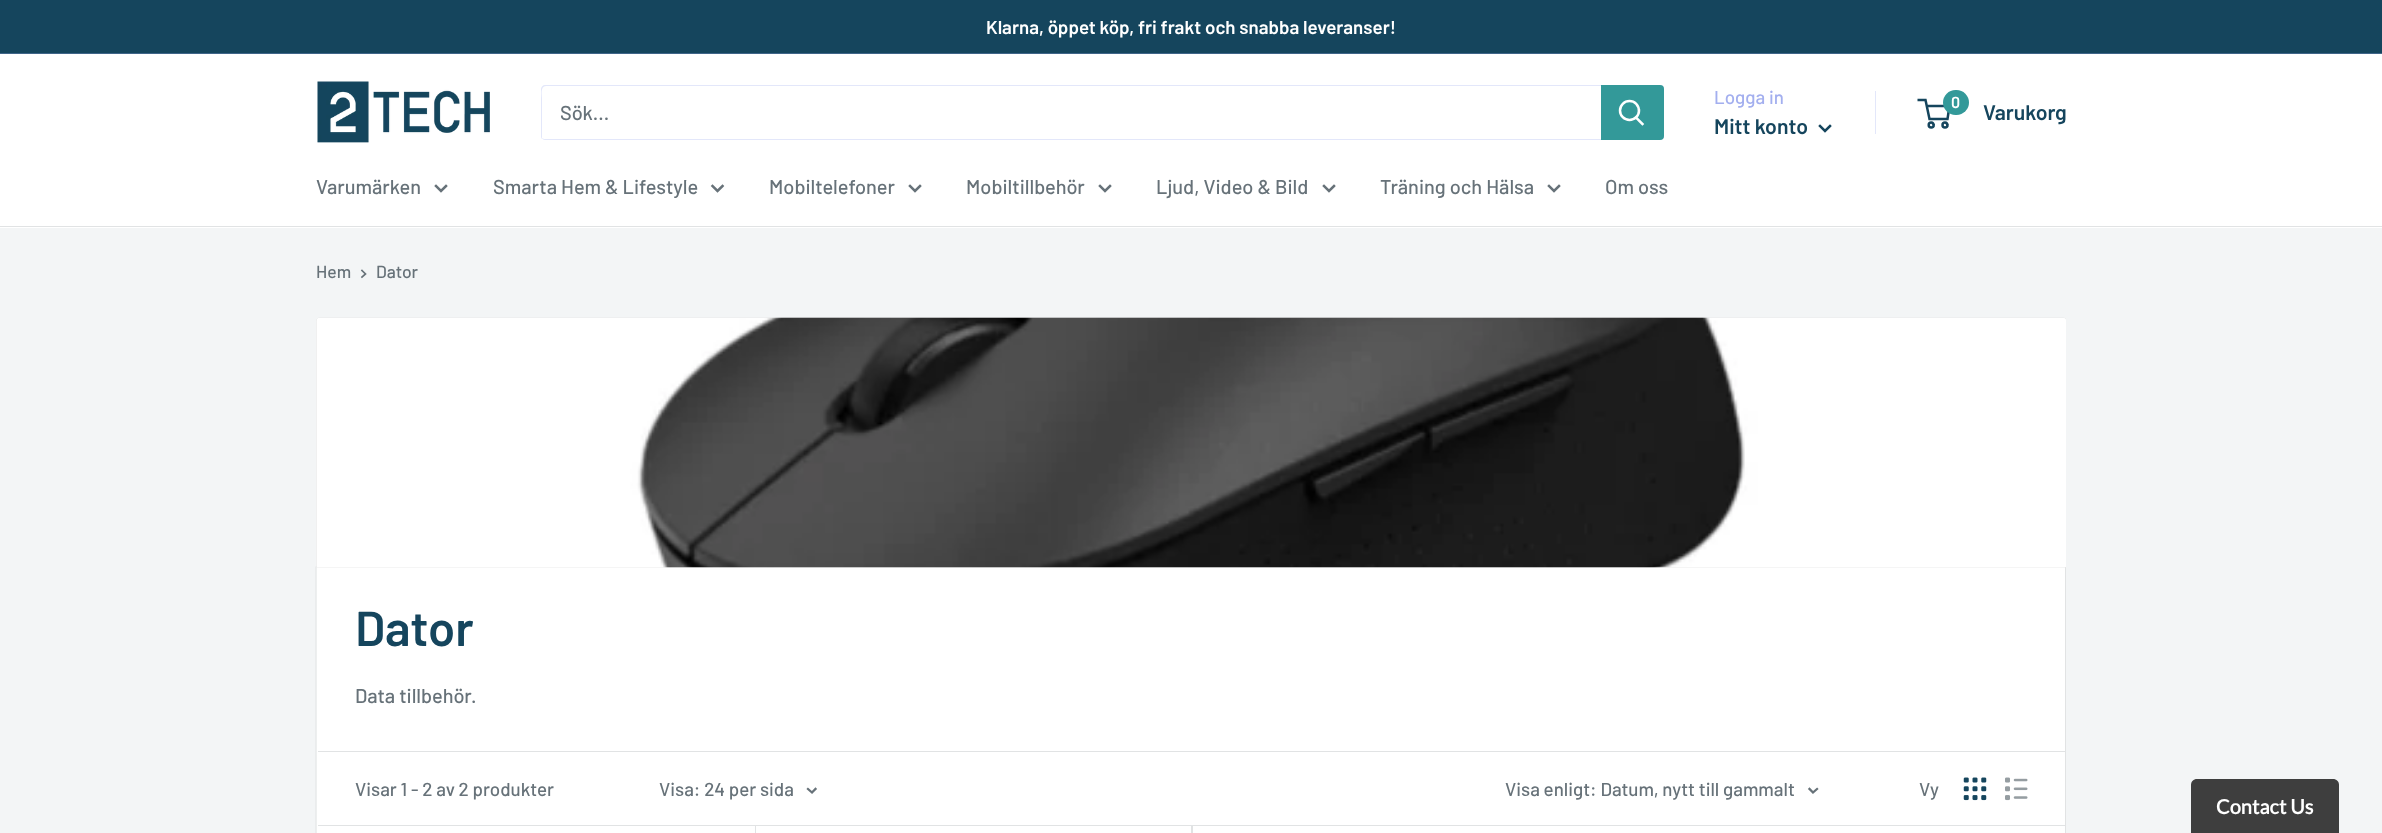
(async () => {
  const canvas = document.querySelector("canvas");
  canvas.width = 2382;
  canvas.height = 833;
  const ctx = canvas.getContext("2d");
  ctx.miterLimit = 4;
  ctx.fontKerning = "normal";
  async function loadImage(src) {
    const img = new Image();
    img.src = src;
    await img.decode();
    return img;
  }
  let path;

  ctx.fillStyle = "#f3f5f6";
  ctx.fillRect(0, 0, 2382, 833);
  for (const [x, y, w, h, color] of [
    [0, 0, 2382, 53, "#15455d"],
    [0, 53, 2382, 1, "#406589"],
    [0, 54, 2382, 174, "#ffffff"],
  ]) {
    ctx.fillStyle = color;
    ctx.fillRect(x, y, w, h);
  }
  ctx.drawImage(await loadImage("img/1.png"), 317, 81, 173, 62);
  ctx.fillStyle = "#e3e7fa";
  path = new Path2D("M542 138C542 139 544 140 545 140H1660C1662 140 1664 138 1664 136V89C1664 87 1663 86 1662 85V88V135C1662 137 1661 139 1659 139H544Z");
  ctx.fill(path);
  ctx.fillStyle = "rgba(163, 175, 239, 0.3)";
  path = new Path2D("M546 86H1661L1663 87C1663 86 1661 85 1660 85H545C543 85 541 87 541 89V136C541 137 541 138 542 139V98C542 96 540 86 546 86Z");
  ctx.fill(path);
  ctx.fillStyle = "#339999";
  ctx.beginPath();
  ctx.roundRect(1601, 85, 63, 55, [0, 4, 4, 0]);
  ctx.fill();
  path = new Path2D("M1642.5 124L1636 117.5");
  ctx.strokeStyle = "#ffffff";
  ctx.lineWidth = 2.5;
  ctx.lineCap = "square";
  ctx.stroke(path);
  ctx.beginPath();
  ctx.arc(1629.5, 110.5, 9.5, 0, Math.PI * 2);
  ctx.stroke();
  ctx.fillStyle = "#e3e7fa";
  ctx.fillRect(1875, 91, 1, 43);
  path = new Path2D("M1830 126L1825 131L1820 126");
  ctx.strokeStyle = "#15455d";
  ctx.stroke(path);
  ctx.beginPath();
  ctx.arc(1931.2, 125, 2.5, 0, Math.PI * 2);
  ctx.stroke();
  ctx.beginPath();
  ctx.arc(1945, 125, 2.5, 0, Math.PI * 2);
  ctx.stroke();
  path = new Path2D("M1926.5 106H1949.5L1947.5 119H1929.5L1925.5 100H1917.5");
  ctx.lineCap = "butt";
  ctx.stroke(path);
  ctx.fillStyle = "#339999";
  ctx.beginPath();
  ctx.roundRect(1943, 90, 26, 25, 12.5);
  ctx.fill();
  ctx.fillStyle = "#e1e3e4";
  ctx.fillRect(0, 226, 2382, 1);
  path = new Path2D("M446 186L441 191L436 186");
  ctx.strokeStyle = "#677279";
  ctx.lineCap = "square";
  ctx.stroke(path);
  path = new Path2D("M722.5 186L717.5 191L712.5 186");
  ctx.stroke(path);
  path = new Path2D("M920 186L915 191L910 186");
  ctx.stroke(path);
  path = new Path2D("M1110 186L1105 191L1100 186");
  ctx.stroke(path);
  path = new Path2D("M1334 186L1329 191L1324 186");
  ctx.stroke(path);
  path = new Path2D("M1559 186L1554 191L1549 186");
  ctx.stroke(path);
  path = new Path2D("M362 270.5L365.5 274L362 277");
  ctx.lineWidth = 1.7;
  ctx.stroke(path);
  ctx.fillStyle = "#ffffff";
  ctx.beginPath();
  ctx.rect(316.5, 566.5, 1749, 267);
  ctx.fill();
  ctx.strokeStyle = "#e1e3e4";
  ctx.lineWidth = 1;
  ctx.stroke();
  ctx.drawImage(await loadImage("img/2.png"), 316, 317, 1750, 251);
  ctx.drawImage(await loadImage("img/3.png"), 316, 317, 1750, 251);
  ctx.fillStyle = "#e1e3e4";
  ctx.fillRect(318, 751, 1747, 1);
  path = new Path2D("M320 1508H322H756V825H755V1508Z");
  ctx.fill(path);
  path = new Path2D("M756 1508H1193V825H1191V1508Z");
  ctx.fill(path);
  ctx.fillRect(318, 825, 1747, 1);
  path = new Path2D("M815.5 789L812 792.5L808 789");
  ctx.strokeStyle = "#677279";
  ctx.lineWidth = 2.3;
  ctx.stroke(path);
  path = new Path2D("M1817 789L1813 792.5L1809.5 789");
  ctx.stroke(path);
  ctx.drawImage(await loadImage("img/4.png"), 1963, 777, 24, 24);
  ctx.drawImage(await loadImage("img/5.png"), 2005, 777, 23, 24);
  ctx.fillStyle = "#3e3e3e";
  path = new Path2D("M2197 779H2333C2336.5 779 2339 781.5 2339 785V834H2191V785C2191 781.5 2193.5 779 2197 779Z");
  ctx.fill(path);
  ctx.font = "600 18.75px Barlow";
  ctx.fillStyle = "#ffffff";
  ctx.fillText("Klarna, öppet köp, fri frakt och snabba leveranser!", 986, 34);
  ctx.font = "500 20px Barlow";
  ctx.fillStyle = "#677279";
  ctx.fillText("Sök...", 560, 120);
  ctx.font = "500 18.75px Barlow";
  ctx.fillStyle = "#a3afef";
  ctx.fillText("Logga in", 1714, 104);
  ctx.font = "600 21.25px Barlow";
  ctx.fillStyle = "#15455d";
  ctx.fillText("Mitt konto", 1714, 134);
  ctx.font = "600 16px Barlow";
  ctx.fillStyle = "#ffffff";
  ctx.fillText("0", 1951, 108);
  ctx.font = "600 21.25px Barlow";
  ctx.fillStyle = "#15455d";
  ctx.fillText("Varukorg", 1983, 120);
  ctx.font = "500 20px Barlow";
  ctx.fillStyle = "#677279";
  for (const [text, x, y] of [
    ["Varumärken", 316, 194],
    ["Smarta Hem & Lifestyle", 493, 194],
    ["Mobiltelefoner", 769, 194],
    ["Mobiltillbehör", 966, 194],
    ["Ljud, Video & Bild", 1156, 194],
    ["Träning och Hälsa", 1380, 194],
    ["Om oss", 1605, 194],
  ]) {
    ctx.fillText(text, x, y);
  }
  ctx.font = "500 17.5px Barlow";
  ctx.fillText("Hem", 316, 278);
  ctx.fillText("Dator", 376, 278);
  ctx.font = "600 49px Barlow";
  ctx.fillStyle = "#15455d";
  ctx.fillText("Dator", 355, 646);
  ctx.font = "500 20px Barlow";
  ctx.fillStyle = "#677279";
  ctx.fillText("Data tillbehör.", 355, 703);
  ctx.font = "500 18.75px Barlow";
  for (const [text, x, y] of [
    ["Visar 1 - 2 av 2 produkter", 355, 796],
    ["Visa: 24 per sida", 659, 796],
    ["Visa enligt: Datum, nytt till gammalt", 1505, 796],
    ["Vy", 1919, 796],
  ]) {
    ctx.fillText(text, x, y);
  }
  ctx.font = "bold 20px Lato";
  ctx.fillStyle = "#ffffff";
  ctx.fillText("Contact Us", 2216, 814);
})();
